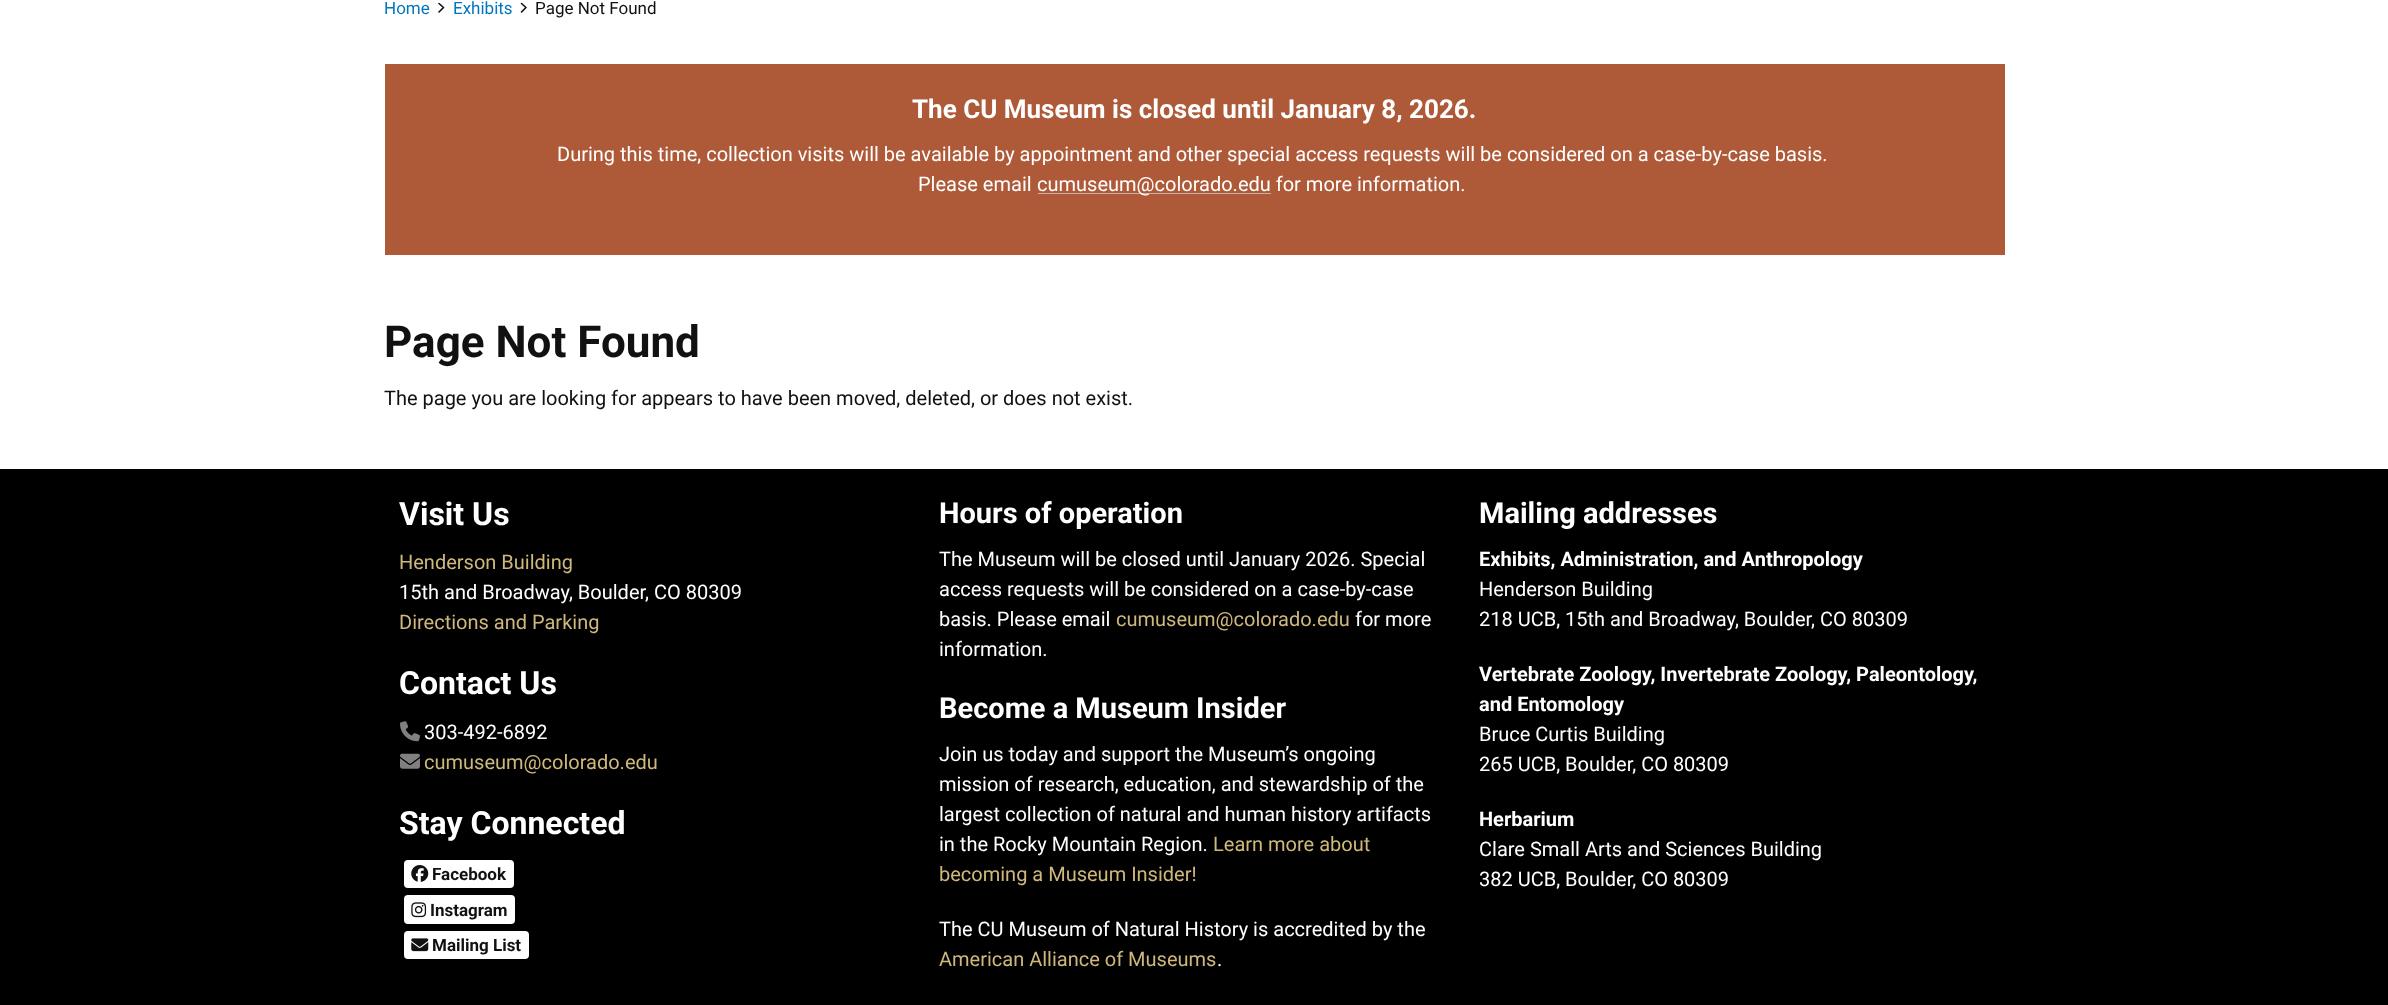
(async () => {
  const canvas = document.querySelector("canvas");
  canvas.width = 2388;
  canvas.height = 1005;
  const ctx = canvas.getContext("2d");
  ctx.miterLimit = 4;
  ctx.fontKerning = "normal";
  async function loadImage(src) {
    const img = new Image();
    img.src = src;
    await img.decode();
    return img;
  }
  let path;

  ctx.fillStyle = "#ffffff";
  ctx.fillRect(0, 0, 2388, 1005);
  path = new Path2D("M439 12L443.5 7.5L439 3.5");
  ctx.strokeStyle = "#111111";
  ctx.lineWidth = 1.6;
  ctx.lineCap = "round";
  ctx.lineJoin = "round";
  ctx.stroke(path);
  path = new Path2D("M521.5 12L526 7.5L521.5 3.5");
  ctx.stroke(path);
  for (const [x, y, w, h, color] of [
    [385, 64, 1620, 191, "#ae5a39"],
    [1038, 193, 233, 1, "#cdafa4"],
    [0, 469, 2388, 536, "#000000"],
  ]) {
    ctx.fillStyle = color;
    ctx.fillRect(x, y, w, h);
  }
  ctx.drawImage(await loadImage("img/1.png"), 400, 721, 20, 21);
  ctx.drawImage(await loadImage("img/2.png"), 400, 753, 20, 16);
  ctx.fillStyle = "#ffffff";
  ctx.beginPath();
  ctx.roundRect(404, 860, 110, 28, 4);
  ctx.fill();
  ctx.drawImage(await loadImage("img/3.png"), 411, 865, 18, 17);
  ctx.beginPath();
  ctx.roundRect(404, 895, 111, 29, 4);
  ctx.fill();
  ctx.drawImage(await loadImage("img/4.png"), 411, 902, 16, 16);
  ctx.beginPath();
  ctx.roundRect(404, 931, 125, 28, 4);
  ctx.fill();
  ctx.drawImage(await loadImage("img/5.png"), 411, 938, 18, 14);
  ctx.font = "17px Roboto";
  ctx.fillStyle = "#0277bd";
  ctx.fillText("Home", 384, 14);
  ctx.fillText("Exhibits", 453, 14);
  ctx.fillStyle = "#111111";
  ctx.fillText("Page Not Found", 535, 14);
  ctx.font = "bold 26px Roboto";
  ctx.fillStyle = "#ffffff";
  ctx.fillText("The CU Museum is closed until January 8, 2026.", 912, 118);
  ctx.font = "20px Roboto";
  for (const [text, x, y] of [
    ["During this time, collection visits will be available by appointment and other special access requests will be considered on a case-by-case basis.", 557, 161],
    ["Please email", 918, 191],
    ["cumuseum@colorado.edu for more information.", 1037, 191],
  ]) {
    ctx.fillText(text, x, y);
  }
  ctx.font = "bold 44px Roboto";
  ctx.fillStyle = "#111111";
  ctx.fillText("Page Not Found", 384, 357);
  ctx.font = "20px Roboto";
  ctx.fillText("The page you are looking for appears to have been moved, deleted, or does not exist.", 384, 405);
  ctx.font = "bold 32px Roboto";
  ctx.fillStyle = "#ffffff";
  ctx.fillText("Visit Us", 399, 525);
  ctx.font = "20px Roboto";
  ctx.fillStyle = "#cfb87c";
  ctx.fillText("Henderson Building", 399, 569);
  ctx.fillStyle = "#ffffff";
  ctx.fillText("15th and Broadway, Boulder, CO 80309", 399, 599);
  ctx.fillStyle = "#cfb87c";
  ctx.fillText("Directions and Parking", 399, 629);
  ctx.font = "bold 32px Roboto";
  ctx.fillStyle = "#ffffff";
  ctx.fillText("Contact Us", 399, 694);
  ctx.font = "20px Roboto";
  ctx.fillText("303-492-6892", 424, 739);
  ctx.fillStyle = "#cfb87c";
  ctx.fillText("cumuseum@colorado.edu", 424, 769);
  ctx.font = "bold 32px Roboto";
  ctx.fillStyle = "#ffffff";
  ctx.fillText("Stay Connected", 399, 834);
  ctx.font = "bold 17px Roboto";
  ctx.fillStyle = "#111111";
  for (const [text, x, y] of [
    ["Facebook", 432, 880],
    ["Instagram", 430, 916],
    ["Mailing List", 432, 951],
  ]) {
    ctx.fillText(text, x, y);
  }
  ctx.font = "bold 29px Roboto";
  ctx.fillStyle = "#ffffff";
  ctx.fillText("Hours of operation", 939, 523);
  ctx.font = "20px Roboto";
  for (const [text, x, y] of [
    ["The Museum will be closed until January 2026. Special", 939, 566],
    ["access requests will be considered on a case-by-case", 939, 596],
    ["basis. Please email", 939, 626],
  ]) {
    ctx.fillText(text, x, y);
  }
  ctx.fillStyle = "#cfb87c";
  ctx.fillText("cumuseum@colorado.edu", 1116, 626);
  ctx.fillStyle = "#ffffff";
  ctx.fillText("for more", 1355, 626);
  ctx.fillText("information.", 939, 656);
  ctx.font = "bold 29px Roboto";
  ctx.fillText("Become a Museum Insider", 939, 718);
  ctx.font = "20px Roboto";
  for (const [text, x, y] of [
    ["Join us today and support the Museum’s ongoing", 939, 761],
    ["mission of research, education, and stewardship of the", 939, 791],
    ["largest collection of natural and human history artifacts", 939, 821],
    ["in the Rocky Mountain Region.", 939, 851],
  ]) {
    ctx.fillText(text, x, y);
  }
  ctx.fillStyle = "#cfb87c";
  ctx.fillText("Learn more about", 1213, 851);
  ctx.fillText("becoming a Museum Insider!", 939, 881);
  ctx.fillStyle = "#ffffff";
  ctx.fillText("The CU Museum of Natural History is accredited by the", 939, 936);
  ctx.fillStyle = "#cfb87c";
  ctx.fillText("American Alliance of Museums", 939, 966);
  ctx.fillStyle = "#ffffff";
  ctx.fillText(".", 1217, 966);
  ctx.font = "bold 29px Roboto";
  ctx.fillText("Mailing addresses", 1479, 523);
  ctx.font = "bold 20px Roboto";
  ctx.fillText("Exhibits, Administration, and Anthropology", 1479, 566);
  ctx.font = "20px Roboto";
  ctx.fillText("Henderson Building", 1479, 596);
  ctx.fillText("218 UCB, 15th and Broadway, Boulder, CO 80309", 1479, 626);
  ctx.font = "bold 20px Roboto";
  ctx.fillText("Vertebrate Zoology, Invertebrate Zoology, Paleontology,", 1479, 681);
  ctx.fillText("and Entomology", 1479, 711);
  ctx.font = "20px Roboto";
  ctx.fillText("Bruce Curtis Building", 1479, 741);
  ctx.fillText("265 UCB, Boulder, CO 80309", 1479, 771);
  ctx.font = "bold 20px Roboto";
  ctx.fillText("Herbarium", 1479, 826);
  ctx.font = "20px Roboto";
  ctx.fillText("Clare Small Arts and Sciences Building", 1479, 856);
  ctx.fillText("382 UCB, Boulder, CO 80309", 1479, 886);
})();
